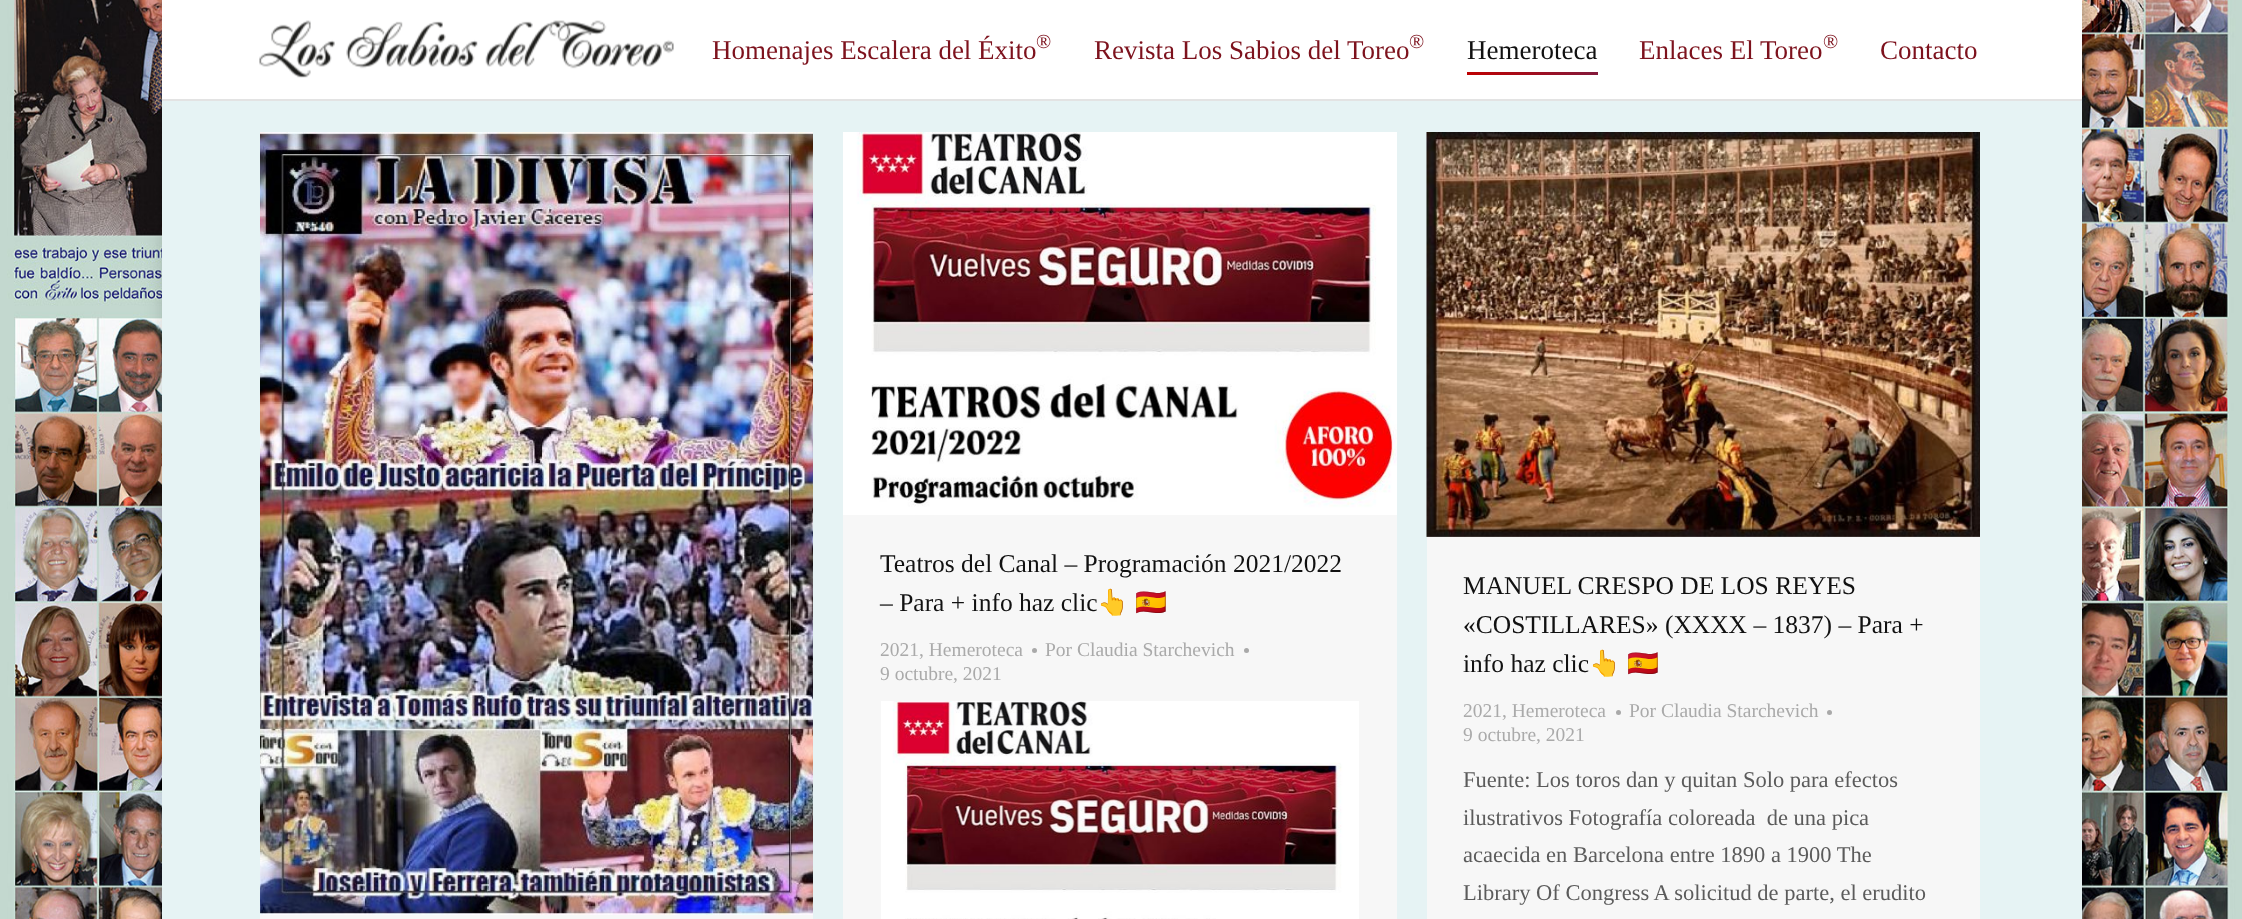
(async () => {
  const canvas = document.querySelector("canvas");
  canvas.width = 2242;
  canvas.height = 919;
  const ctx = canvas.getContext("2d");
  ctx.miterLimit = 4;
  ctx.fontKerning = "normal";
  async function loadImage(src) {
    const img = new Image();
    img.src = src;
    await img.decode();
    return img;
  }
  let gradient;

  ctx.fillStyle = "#ffffff";
  ctx.fillRect(0, 0, 2242, 919);
  ctx.drawImage(await loadImage("img/1.png"), 0, 0, 2242, 919);
  ctx.fillStyle = "rgba(0, 0, 0, 0.15)";
  ctx.filter = "blur(9px)";
  ctx.beginPath();
  ctx.rect(162, -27, 1920, 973);
  ctx.fill();
  ctx.filter = "none";
  ctx.fillStyle = "#ffffff";
  ctx.fillRect(162, 0, 1920, 99);
  ctx.fillStyle = "#e3e3e3";
  ctx.fillRect(162, 99, 1920, 2);
  ctx.drawImage(await loadImage("img/2.png"), 259, 20, 415, 58);
  gradient = ctx.createLinearGradient(1515, 103, 1549, 44);
  gradient.addColorStop(0, "#bf0000");
  gradient.addColorStop(1, "#821a3c");
  ctx.fillStyle = gradient;
  ctx.fillRect(1467, 72, 131, 3);
  ctx.fillStyle = "#e6f3f4";
  ctx.fillRect(162, 101, 1920, 818);
  ctx.fillStyle = "#f7f7f7";
  ctx.fillRect(260, 914, 553, 5);
  ctx.drawImage(await loadImage("img/3.png"), 260, 132, 553, 783);
  ctx.fillRect(843, 515, 554, 404);
  ctx.drawImage(await loadImage("img/4.png"), 843, 132, 554, 383);
  ctx.fillStyle = "#a9a9a9";
  ctx.beginPath();
  ctx.arc(1034.5, 650.5, 2.5, 0, Math.PI * 2);
  ctx.fill();
  ctx.beginPath();
  ctx.arc(1246.5, 650.5, 2.5, 0, Math.PI * 2);
  ctx.fill();
  ctx.drawImage(await loadImage("img/5.png"), 881, 701, 478, 218);
  ctx.fillStyle = "#f7f7f7";
  ctx.fillRect(1427, 536, 553, 383);
  ctx.drawImage(await loadImage("img/6.png"), 1426, 132, 554, 405);
  ctx.fillStyle = "#a9a9a9";
  ctx.beginPath();
  ctx.arc(1618.5, 712.5, 2.5, 0, Math.PI * 2);
  ctx.fill();
  ctx.beginPath();
  ctx.arc(1829.5, 712.5, 2.5, 0, Math.PI * 2);
  ctx.fill();
  ctx.font = "27px Liberation Serif";
  ctx.fillStyle = "#7d121d";
  ctx.fillText("Homenajes Escalera del Éxito", 712, 59);
  ctx.font = "20px Liberation Serif";
  ctx.fillText("®", 1036, 48);
  ctx.font = "27px Liberation Serif";
  ctx.fillText("Revista Los Sabios del Toreo", 1094, 59);
  ctx.font = "20px Liberation Serif";
  ctx.fillText("®", 1409, 48);
  ctx.font = "27px Liberation Serif";
  ctx.fillStyle = "#111111";
  ctx.fillText("Hemeroteca", 1467, 59);
  ctx.fillStyle = "#7d121d";
  ctx.fillText("Enlaces El Toreo", 1639, 59);
  ctx.font = "20px Liberation Serif";
  ctx.fillText("®", 1823, 48);
  ctx.font = "27px Liberation Serif";
  ctx.fillText("Contacto", 1880, 59);
  ctx.font = "25.5px Liberation Serif";
  ctx.fillStyle = "#111111";
  ctx.fillText("Teatros del Canal – Programación 2021/2022", 880, 572);
  ctx.fillText("– Para + info haz clic", 880, 611);
  ctx.font = "25.5px Noto Color Emoji";
  ctx.fillText("👆", 1097, 611);
  ctx.fillText("🇪🇸", 1135, 611);
  ctx.font = "19.5px Liberation Serif";
  ctx.fillStyle = "#aaaaaa";
  for (const [text, x, y] of [
    ["2021, Hemeroteca", 880, 656],
    ["Por Claudia Starchevich", 1045, 656],
    ["9 octubre, 2021", 880, 680],
  ]) {
    ctx.fillText(text, x, y);
  }
  ctx.font = "25.5px Liberation Serif";
  ctx.fillStyle = "#111111";
  for (const [text, x, y] of [
    ["MANUEL CRESPO DE LOS REYES", 1463, 594],
    ["«COSTILLARES» (XXXX – 1837) – Para +", 1463, 633],
    ["info haz clic", 1463, 672],
  ]) {
    ctx.fillText(text, x, y);
  }
  ctx.font = "25.5px Noto Color Emoji";
  ctx.fillText("👆", 1589, 672);
  ctx.fillText("🇪🇸", 1627, 672);
  ctx.font = "19.5px Liberation Serif";
  ctx.fillStyle = "#aaaaaa";
  for (const [text, x, y] of [
    ["2021, Hemeroteca", 1463, 717],
    ["Por Claudia Starchevich", 1629, 717],
    ["9 octubre, 2021", 1463, 741],
  ]) {
    ctx.fillText(text, x, y);
  }
  ctx.font = "22.5px Liberation Serif";
  ctx.fillStyle = "#5b5b5b";
  for (const [text, x, y] of [
    ["Fuente: Los toros dan y quitan Solo para efectos", 1463, 787],
    ["ilustrativos Fotografía coloreada  de una pica", 1463, 825],
    ["acaecida en Barcelona entre 1890 a 1900 The", 1463, 862],
    ["Library Of Congress A solicitud de parte, el erudito", 1463, 900],
  ]) {
    ctx.fillText(text, x, y);
  }
})();
